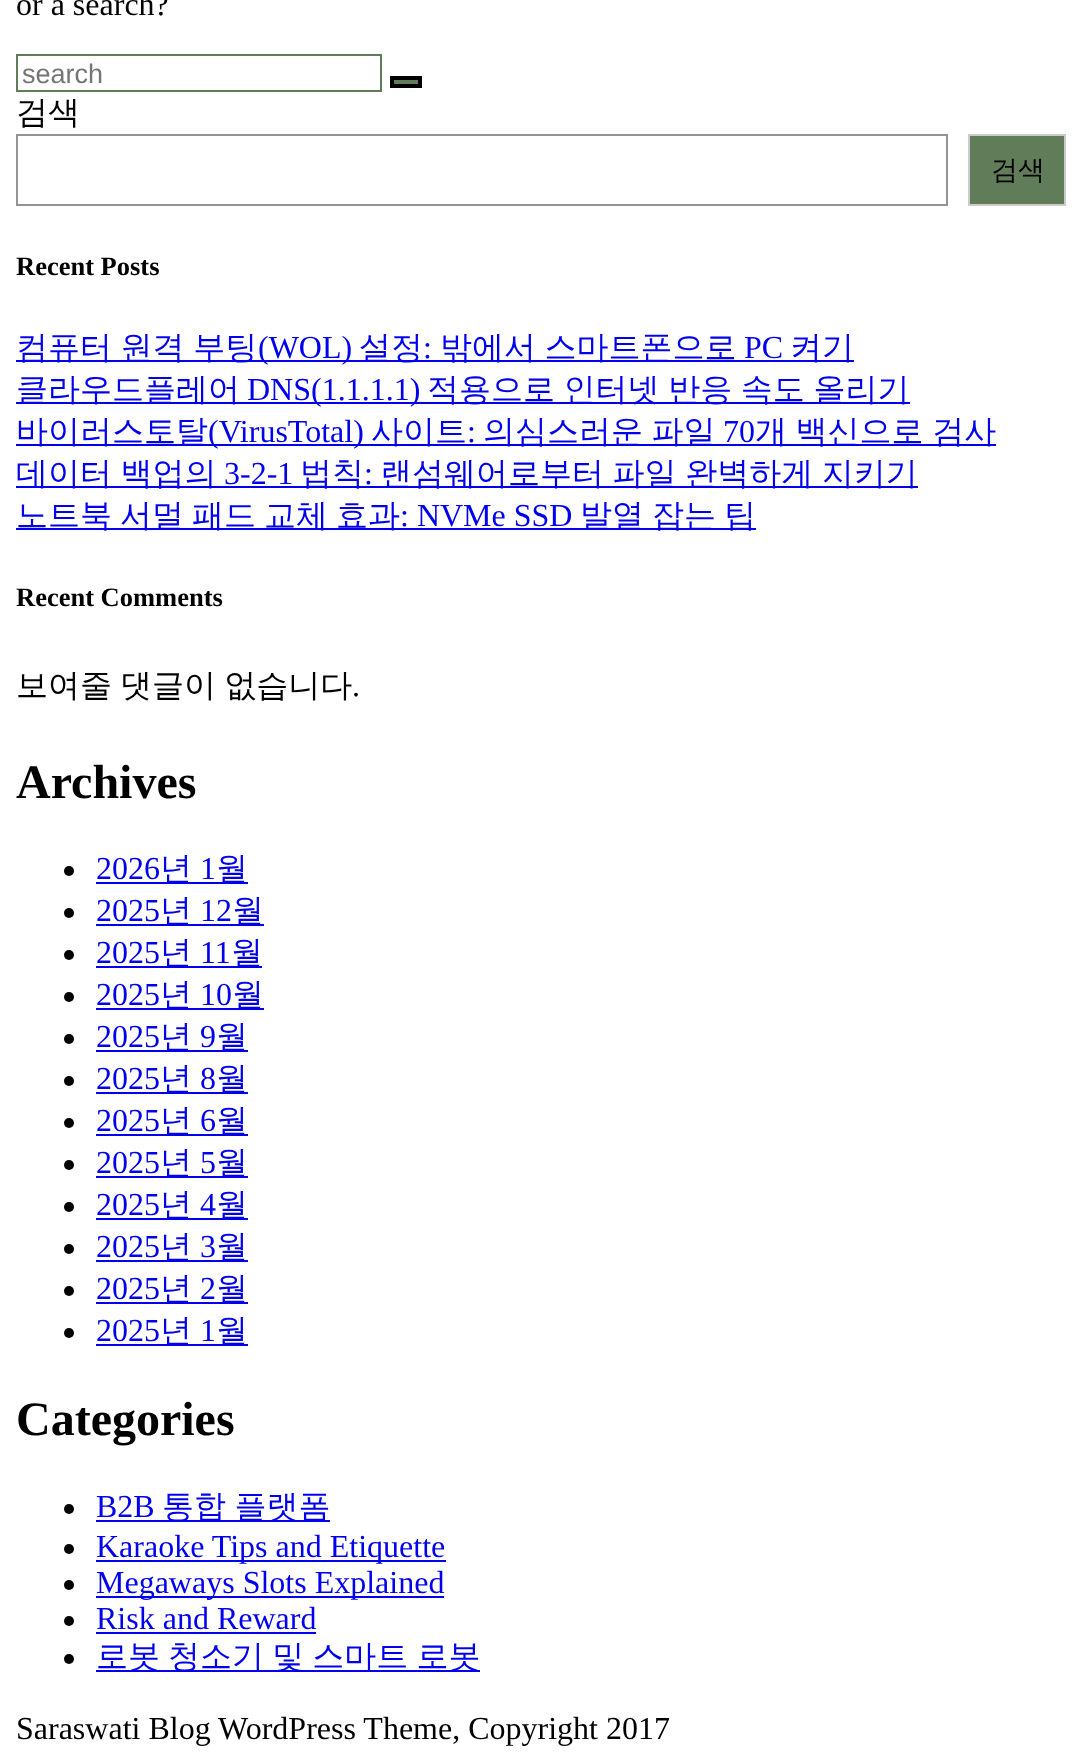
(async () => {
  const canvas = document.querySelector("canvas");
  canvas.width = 1081;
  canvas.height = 1753;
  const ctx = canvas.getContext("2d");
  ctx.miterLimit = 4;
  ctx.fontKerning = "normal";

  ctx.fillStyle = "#ffffff";
  ctx.fillRect(0, 0, 1081, 1753);
  ctx.strokeStyle = "#617c58";
  ctx.lineWidth = 2;
  ctx.strokeRect(17, 55, 364, 36);
  ctx.fillStyle = "#617c58";
  ctx.beginPath();
  ctx.rect(392, 78, 28, 8);
  ctx.fill();
  ctx.strokeStyle = "#000000";
  ctx.lineWidth = 4;
  ctx.stroke();
  ctx.strokeStyle = "#949494";
  ctx.lineWidth = 2;
  ctx.strokeRect(17, 135, 930, 70);
  ctx.beginPath();
  ctx.rect(969, 135, 96, 70);
  ctx.fill();
  ctx.strokeStyle = "#cccccc";
  ctx.stroke();
  for (const [x, y, w, h, color] of [
    [16, 360, 838, 2, "#0000ee"],
    [16, 402, 894, 2, "#0000ee"],
    [16, 444, 980, 2, "#0000ee"],
    [16, 486, 902, 2, "#0000ee"],
    [16, 528, 740, 2, "#0000ee"],
  ]) {
    ctx.fillStyle = color;
    ctx.fillRect(x, y, w, h);
  }
  ctx.fillStyle = "#000000";
  ctx.beginPath();
  ctx.arc(69, 871, 5, 0, Math.PI * 2);
  ctx.fill();
  ctx.fillStyle = "#0000ee";
  ctx.fillRect(96, 882, 152, 2);
  ctx.fillStyle = "#000000";
  ctx.beginPath();
  ctx.arc(69, 913, 5, 0, Math.PI * 2);
  ctx.fill();
  ctx.fillStyle = "#0000ee";
  ctx.fillRect(96, 924, 168, 2);
  ctx.fillStyle = "#000000";
  ctx.beginPath();
  ctx.arc(69, 955, 5, 0, Math.PI * 2);
  ctx.fill();
  ctx.fillStyle = "#0000ee";
  ctx.fillRect(96, 966, 166, 2);
  ctx.fillStyle = "#000000";
  ctx.beginPath();
  ctx.arc(69, 997, 5, 0, Math.PI * 2);
  ctx.fill();
  ctx.fillStyle = "#0000ee";
  ctx.fillRect(96, 1008, 168, 2);
  ctx.fillStyle = "#000000";
  ctx.beginPath();
  ctx.arc(69, 1039, 5, 0, Math.PI * 2);
  ctx.fill();
  ctx.fillStyle = "#0000ee";
  ctx.fillRect(96, 1050, 152, 2);
  ctx.fillStyle = "#000000";
  ctx.beginPath();
  ctx.arc(69, 1081, 5, 0, Math.PI * 2);
  ctx.fill();
  ctx.fillStyle = "#0000ee";
  ctx.fillRect(96, 1092, 152, 2);
  ctx.fillStyle = "#000000";
  ctx.beginPath();
  ctx.arc(69, 1123, 5, 0, Math.PI * 2);
  ctx.fill();
  ctx.fillStyle = "#0000ee";
  ctx.fillRect(96, 1134, 152, 2);
  ctx.fillStyle = "#000000";
  ctx.beginPath();
  ctx.arc(69, 1165, 5, 0, Math.PI * 2);
  ctx.fill();
  ctx.fillStyle = "#0000ee";
  ctx.fillRect(96, 1176, 152, 2);
  ctx.fillStyle = "#000000";
  ctx.beginPath();
  ctx.arc(69, 1207, 5, 0, Math.PI * 2);
  ctx.fill();
  ctx.fillStyle = "#0000ee";
  ctx.fillRect(96, 1218, 152, 2);
  ctx.fillStyle = "#000000";
  ctx.beginPath();
  ctx.arc(69, 1249, 5, 0, Math.PI * 2);
  ctx.fill();
  ctx.fillStyle = "#0000ee";
  ctx.fillRect(96, 1260, 152, 2);
  ctx.fillStyle = "#000000";
  ctx.beginPath();
  ctx.arc(69, 1291, 5, 0, Math.PI * 2);
  ctx.fill();
  ctx.fillStyle = "#0000ee";
  ctx.fillRect(96, 1302, 152, 2);
  ctx.fillStyle = "#000000";
  ctx.beginPath();
  ctx.arc(69, 1333, 5, 0, Math.PI * 2);
  ctx.fill();
  ctx.fillStyle = "#0000ee";
  ctx.fillRect(96, 1344, 152, 2);
  ctx.fillStyle = "#000000";
  ctx.beginPath();
  ctx.arc(69, 1509, 5, 0, Math.PI * 2);
  ctx.fill();
  ctx.fillStyle = "#0000ee";
  ctx.fillRect(96, 1520, 234, 2);
  ctx.fillStyle = "#000000";
  ctx.beginPath();
  ctx.arc(69, 1549, 5, 0, Math.PI * 2);
  ctx.fill();
  ctx.fillStyle = "#0000ee";
  ctx.fillRect(96, 1560, 350, 2);
  ctx.fillStyle = "#000000";
  ctx.beginPath();
  ctx.arc(69, 1585, 5, 0, Math.PI * 2);
  ctx.fill();
  ctx.fillStyle = "#0000ee";
  ctx.fillRect(96, 1596, 348, 2);
  ctx.fillStyle = "#000000";
  ctx.beginPath();
  ctx.arc(69, 1621, 5, 0, Math.PI * 2);
  ctx.fill();
  ctx.fillStyle = "#0000ee";
  ctx.fillRect(96, 1632, 220, 2);
  ctx.fillStyle = "#000000";
  ctx.beginPath();
  ctx.arc(69, 1659, 5, 0, Math.PI * 2);
  ctx.fill();
  ctx.fillStyle = "#0000ee";
  ctx.fillRect(96, 1670, 384, 2);
  ctx.font = "32px Liberation Serif";
  ctx.fillStyle = "#000000";
  ctx.fillText("or a search?", 16, 15);
  ctx.font = "27px Liberation Sans";
  ctx.fillStyle = "#757575";
  ctx.fillText("search", 22, 83);
  ctx.font = "500 32px WenQuanYi Zen Hei";
  ctx.fillStyle = "#000000";
  ctx.fillText("검색", 16, 123);
  ctx.font = "500 27px WenQuanYi Zen Hei";
  ctx.fillText("검색", 991, 179);
  ctx.font = "bold 26.5px Liberation Serif";
  ctx.fillText("Recent Posts", 16, 275);
  ctx.wordSpacing = "-1px";
  ctx.font = "500 32px WenQuanYi Zen Hei";
  ctx.fillStyle = "#0000ee";
  ctx.fillText("컴퓨터 원격 부팅", 16, 358);
  ctx.wordSpacing = "0px";
  ctx.font = "32px Liberation Serif";
  ctx.fillText("(WOL)", 258, 358);
  ctx.font = "500 32px WenQuanYi Zen Hei";
  ctx.fillText("설정", 359, 358);
  ctx.font = "32px Liberation Serif";
  ctx.fillText(":", 423, 358);
  ctx.wordSpacing = "-1px";
  ctx.font = "500 32px WenQuanYi Zen Hei";
  ctx.fillText("밖에서 스마트폰으로", 440, 358);
  ctx.wordSpacing = "0px";
  ctx.font = "32px Liberation Serif";
  ctx.fillText("PC", 744, 358);
  ctx.font = "500 32px WenQuanYi Zen Hei";
  ctx.fillText("켜기", 790, 358);
  ctx.fillText("클라우드플레어", 16, 400);
  ctx.font = "32px Liberation Serif";
  ctx.fillText("DNS(1.1.1.1)", 247, 400);
  ctx.wordSpacing = "-1px";
  ctx.font = "500 32px WenQuanYi Zen Hei";
  ctx.fillText("적용으로 인터넷 반응 속도 올리기", 427, 400);
  ctx.wordSpacing = "0px";
  ctx.fillText("바이러스토탈", 16, 442);
  ctx.font = "32px Liberation Serif";
  ctx.fillText("(VirusTotal)", 208, 442);
  ctx.font = "500 32px WenQuanYi Zen Hei";
  ctx.fillText("사이트", 371, 442);
  ctx.font = "32px Liberation Serif";
  ctx.fillText(":", 467, 442);
  ctx.wordSpacing = "-1px";
  ctx.font = "500 32px WenQuanYi Zen Hei";
  ctx.fillText("의심스러운 파일", 483, 442);
  ctx.wordSpacing = "0px";
  ctx.font = "32px Liberation Serif";
  ctx.fillText("70", 723, 442);
  ctx.wordSpacing = "-1px";
  ctx.font = "500 32px WenQuanYi Zen Hei";
  ctx.fillText("개 백신으로 검사", 755, 442);
  ctx.fillText("데이터 백업의", 16, 484);
  ctx.wordSpacing = "0px";
  ctx.font = "32px Liberation Serif";
  ctx.fillText("3-2-1", 224, 484);
  ctx.font = "500 32px WenQuanYi Zen Hei";
  ctx.fillText("법칙", 300, 484);
  ctx.font = "32px Liberation Serif";
  ctx.fillText(":", 364, 484);
  ctx.wordSpacing = "-1px";
  ctx.font = "500 32px WenQuanYi Zen Hei";
  ctx.fillText("랜섬웨어로부터 파일 완벽하게 지키기", 380, 484);
  ctx.wordSpacing = "0px";
  for (const [text, x, y] of [
    ["노트북", 16, 526],
    ["서멀", 120, 526],
    ["패드", 192, 526],
    ["교체", 264, 526],
    ["효과", 336, 526],
  ]) {
    ctx.fillText(text, x, y);
  }
  ctx.font = "32px Liberation Serif";
  ctx.fillText(": NVMe SSD", 400, 526);
  ctx.font = "500 32px WenQuanYi Zen Hei";
  for (const [text, x, y] of [
    ["발열", 580, 526],
    ["잡는", 652, 526],
    ["팁", 724, 526],
  ]) {
    ctx.fillText(text, x, y);
  }
  ctx.font = "bold 26.5px Liberation Serif";
  ctx.fillStyle = "#000000";
  ctx.fillText("Recent Comments", 16, 606);
  ctx.wordSpacing = "-1.5px";
  ctx.font = "500 32px WenQuanYi Zen Hei";
  ctx.fillText("보여줄 댓글이 없습니다", 16, 696);
  ctx.wordSpacing = "0px";
  ctx.font = "32px Liberation Serif";
  ctx.fillText(".", 352, 696);
  ctx.font = "bold 48px Liberation Serif";
  ctx.fillText("Archives", 16, 798);
  ctx.font = "32px Liberation Serif";
  ctx.fillStyle = "#0000ee";
  ctx.fillText("2026", 96, 879);
  ctx.font = "500 32px WenQuanYi Zen Hei";
  ctx.fillText("년", 160, 879);
  ctx.font = "32px Liberation Serif";
  ctx.fillText("1", 200, 879);
  ctx.font = "500 32px WenQuanYi Zen Hei";
  ctx.fillText("월", 216, 879);
  ctx.font = "32px Liberation Serif";
  ctx.fillText("2025", 96, 921);
  ctx.font = "500 32px WenQuanYi Zen Hei";
  ctx.fillText("년", 160, 921);
  ctx.font = "32px Liberation Serif";
  ctx.fillText("12", 200, 921);
  ctx.font = "500 32px WenQuanYi Zen Hei";
  ctx.fillText("월", 232, 921);
  ctx.font = "32px Liberation Serif";
  ctx.fillText("2025", 96, 963);
  ctx.font = "500 32px WenQuanYi Zen Hei";
  ctx.fillText("년", 160, 963);
  ctx.font = "32px Liberation Serif";
  ctx.fillText("11", 200, 963);
  ctx.font = "500 32px WenQuanYi Zen Hei";
  ctx.fillText("월", 231, 963);
  ctx.font = "32px Liberation Serif";
  ctx.fillText("2025", 96, 1005);
  ctx.font = "500 32px WenQuanYi Zen Hei";
  ctx.fillText("년", 160, 1005);
  ctx.font = "32px Liberation Serif";
  ctx.fillText("10", 200, 1005);
  ctx.font = "500 32px WenQuanYi Zen Hei";
  ctx.fillText("월", 232, 1005);
  ctx.font = "32px Liberation Serif";
  ctx.fillText("2025", 96, 1047);
  ctx.font = "500 32px WenQuanYi Zen Hei";
  ctx.fillText("년", 160, 1047);
  ctx.font = "32px Liberation Serif";
  ctx.fillText("9", 200, 1047);
  ctx.font = "500 32px WenQuanYi Zen Hei";
  ctx.fillText("월", 216, 1047);
  ctx.font = "32px Liberation Serif";
  ctx.fillText("2025", 96, 1089);
  ctx.font = "500 32px WenQuanYi Zen Hei";
  ctx.fillText("년", 160, 1089);
  ctx.font = "32px Liberation Serif";
  ctx.fillText("8", 200, 1089);
  ctx.font = "500 32px WenQuanYi Zen Hei";
  ctx.fillText("월", 216, 1089);
  ctx.font = "32px Liberation Serif";
  ctx.fillText("2025", 96, 1131);
  ctx.font = "500 32px WenQuanYi Zen Hei";
  ctx.fillText("년", 160, 1131);
  ctx.font = "32px Liberation Serif";
  ctx.fillText("6", 200, 1131);
  ctx.font = "500 32px WenQuanYi Zen Hei";
  ctx.fillText("월", 216, 1131);
  ctx.font = "32px Liberation Serif";
  ctx.fillText("2025", 96, 1173);
  ctx.font = "500 32px WenQuanYi Zen Hei";
  ctx.fillText("년", 160, 1173);
  ctx.font = "32px Liberation Serif";
  ctx.fillText("5", 200, 1173);
  ctx.font = "500 32px WenQuanYi Zen Hei";
  ctx.fillText("월", 216, 1173);
  ctx.font = "32px Liberation Serif";
  ctx.fillText("2025", 96, 1215);
  ctx.font = "500 32px WenQuanYi Zen Hei";
  ctx.fillText("년", 160, 1215);
  ctx.font = "32px Liberation Serif";
  ctx.fillText("4", 200, 1215);
  ctx.font = "500 32px WenQuanYi Zen Hei";
  ctx.fillText("월", 216, 1215);
  ctx.font = "32px Liberation Serif";
  ctx.fillText("2025", 96, 1257);
  ctx.font = "500 32px WenQuanYi Zen Hei";
  ctx.fillText("년", 160, 1257);
  ctx.font = "32px Liberation Serif";
  ctx.fillText("3", 200, 1257);
  ctx.font = "500 32px WenQuanYi Zen Hei";
  ctx.fillText("월", 216, 1257);
  ctx.font = "32px Liberation Serif";
  ctx.fillText("2025", 96, 1299);
  ctx.font = "500 32px WenQuanYi Zen Hei";
  ctx.fillText("년", 160, 1299);
  ctx.font = "32px Liberation Serif";
  ctx.fillText("2", 200, 1299);
  ctx.font = "500 32px WenQuanYi Zen Hei";
  ctx.fillText("월", 216, 1299);
  ctx.font = "32px Liberation Serif";
  ctx.fillText("2025", 96, 1341);
  ctx.font = "500 32px WenQuanYi Zen Hei";
  ctx.fillText("년", 160, 1341);
  ctx.font = "32px Liberation Serif";
  ctx.fillText("1", 200, 1341);
  ctx.font = "500 32px WenQuanYi Zen Hei";
  ctx.fillText("월", 216, 1341);
  ctx.font = "bold 48px Liberation Serif";
  ctx.fillStyle = "#000000";
  ctx.fillText("Categories", 16, 1435);
  ctx.font = "32px Liberation Serif";
  ctx.fillStyle = "#0000ee";
  ctx.fillText("B2B", 96, 1517);
  ctx.wordSpacing = "-1px";
  ctx.font = "500 32px WenQuanYi Zen Hei";
  ctx.fillText("통합 플랫폼", 162, 1517);
  ctx.wordSpacing = "0px";
  ctx.font = "32px Liberation Serif";
  for (const [text, x, y] of [
    ["Karaoke Tips and Etiquette", 96, 1557],
    ["Megaways Slots Explained", 96, 1593],
    ["Risk and Reward", 96, 1629],
  ]) {
    ctx.fillText(text, x, y);
  }
  ctx.wordSpacing = "-1.5px";
  ctx.font = "500 32px WenQuanYi Zen Hei";
  ctx.fillText("로봇 청소기 및 스마트 로봇", 96, 1667);
  ctx.wordSpacing = "0px";
  ctx.font = "32px Liberation Serif";
  ctx.fillStyle = "#000000";
  ctx.fillText("Saraswati Blog WordPress Theme, Copyright 2017", 16, 1739);
})();
